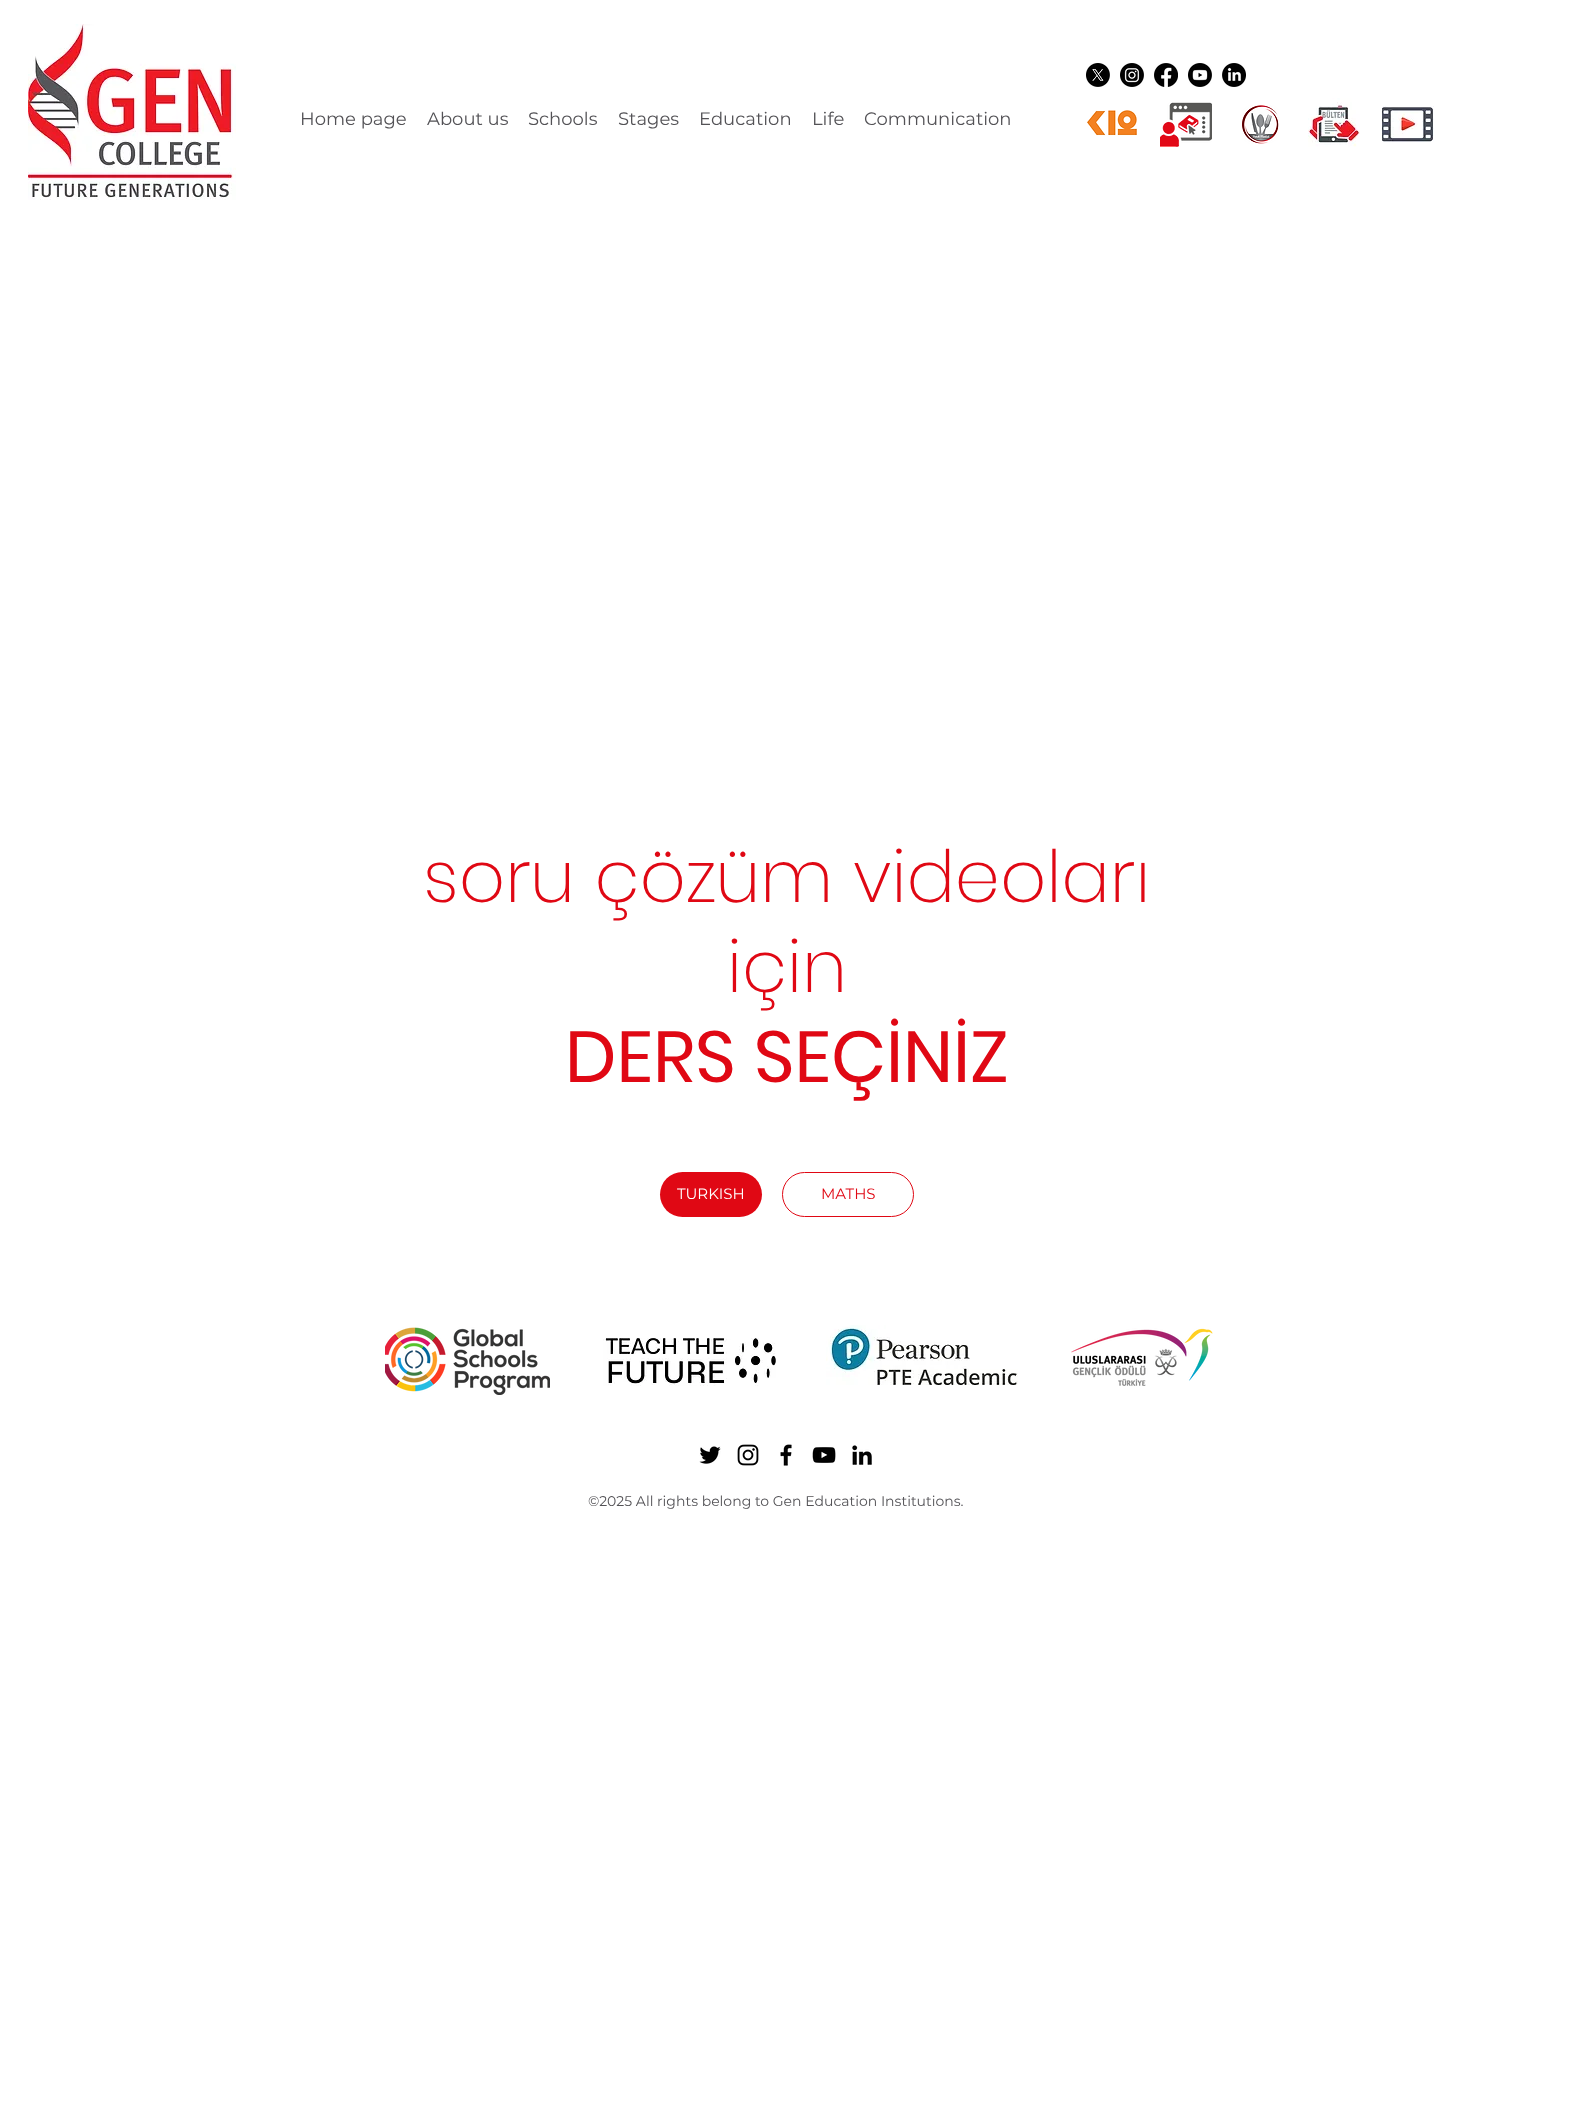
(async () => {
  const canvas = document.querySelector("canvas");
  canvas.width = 1574;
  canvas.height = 2108;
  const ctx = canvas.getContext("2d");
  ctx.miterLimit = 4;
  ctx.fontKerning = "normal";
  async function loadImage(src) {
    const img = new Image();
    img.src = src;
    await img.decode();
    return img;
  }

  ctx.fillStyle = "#ffffff";
  ctx.fillRect(0, 0, 1574, 2108);
  ctx.drawImage(await loadImage("img/1.png"), 28, 24, 208, 176);
  ctx.drawImage(await loadImage("img/2.png"), 1086, 63, 24, 24);
  ctx.drawImage(await loadImage("img/3.png"), 1120, 63, 24, 24);
  ctx.drawImage(await loadImage("img/4.png"), 1154, 63, 24, 24);
  ctx.drawImage(await loadImage("img/5.png"), 1188, 63, 24, 24);
  ctx.drawImage(await loadImage("img/6.png"), 1222, 63, 24, 24);
  ctx.drawImage(await loadImage("img/7.png"), 1087, 110, 50, 26);
  ctx.drawImage(await loadImage("img/8.png"), 1160, 102, 52, 45);
  ctx.drawImage(await loadImage("img/9.png"), 1242, 105, 37, 39);
  ctx.drawImage(await loadImage("img/10.png"), 1308, 98, 52, 49);
  ctx.drawImage(await loadImage("img/11.png"), 1382, 106, 52, 36);
  ctx.fillStyle = "#e00814";
  ctx.beginPath();
  ctx.roundRect(660, 1172, 102, 45, 22.5);
  ctx.fill();
  ctx.beginPath();
  ctx.roundRect(782.5, 1172.5, 131, 44, 22);
  ctx.strokeStyle = "#e00814";
  ctx.stroke();
  ctx.drawImage(await loadImage("img/12.png"), 385, 1327, 165, 68);
  ctx.drawImage(await loadImage("img/13.png"), 603, 1338, 173, 48);
  ctx.drawImage(await loadImage("img/14.png"), 826, 1325, 192, 60);
  ctx.drawImage(await loadImage("img/15.png"), 1071, 1328, 142, 58);
  ctx.drawImage(await loadImage("img/16.png"), 699, 1446, 22, 18);
  ctx.drawImage(await loadImage("img/17.png"), 737, 1444, 22, 22);
  ctx.drawImage(await loadImage("img/18.png"), 780, 1444, 12, 22);
  ctx.drawImage(await loadImage("img/19.png"), 812, 1447, 24, 16);
  ctx.drawImage(await loadImage("img/20.png"), 852, 1445, 20, 20);
  ctx.font = "18px Montserrat";
  ctx.fillStyle = "#535256";
  for (const [text, x, y] of [
    ["Home page", 300, 125],
    ["About us", 427, 125],
    ["Schools", 528, 125],
    ["Stages", 618, 125],
    ["Education", 699, 125],
    ["Life", 812, 125],
    ["Communication", 864, 125],
  ]) {
    ctx.fillText(text, x, y);
  }
  ctx.font = "200 72px Poppins";
  ctx.fillStyle = "#e00814";
  ctx.fillText("soru çözüm videoları", 423, 902);
  ctx.fillText("için", 727, 992);
  ctx.font = "72px Poppins";
  ctx.fillText("DERS SEÇİNİZ", 565, 1082);
  ctx.font = "15px Montserrat";
  ctx.fillStyle = "#ffffff";
  ctx.fillText("TURKISH", 677, 1199);
  ctx.fillStyle = "#e00814";
  ctx.fillText("MATHS", 821, 1199);
  ctx.font = "14px Montserrat";
  ctx.fillStyle = "#535256";
  ctx.fillText("©2025 All rights belong to Gen Education Institutions.", 588, 1506);
})();
